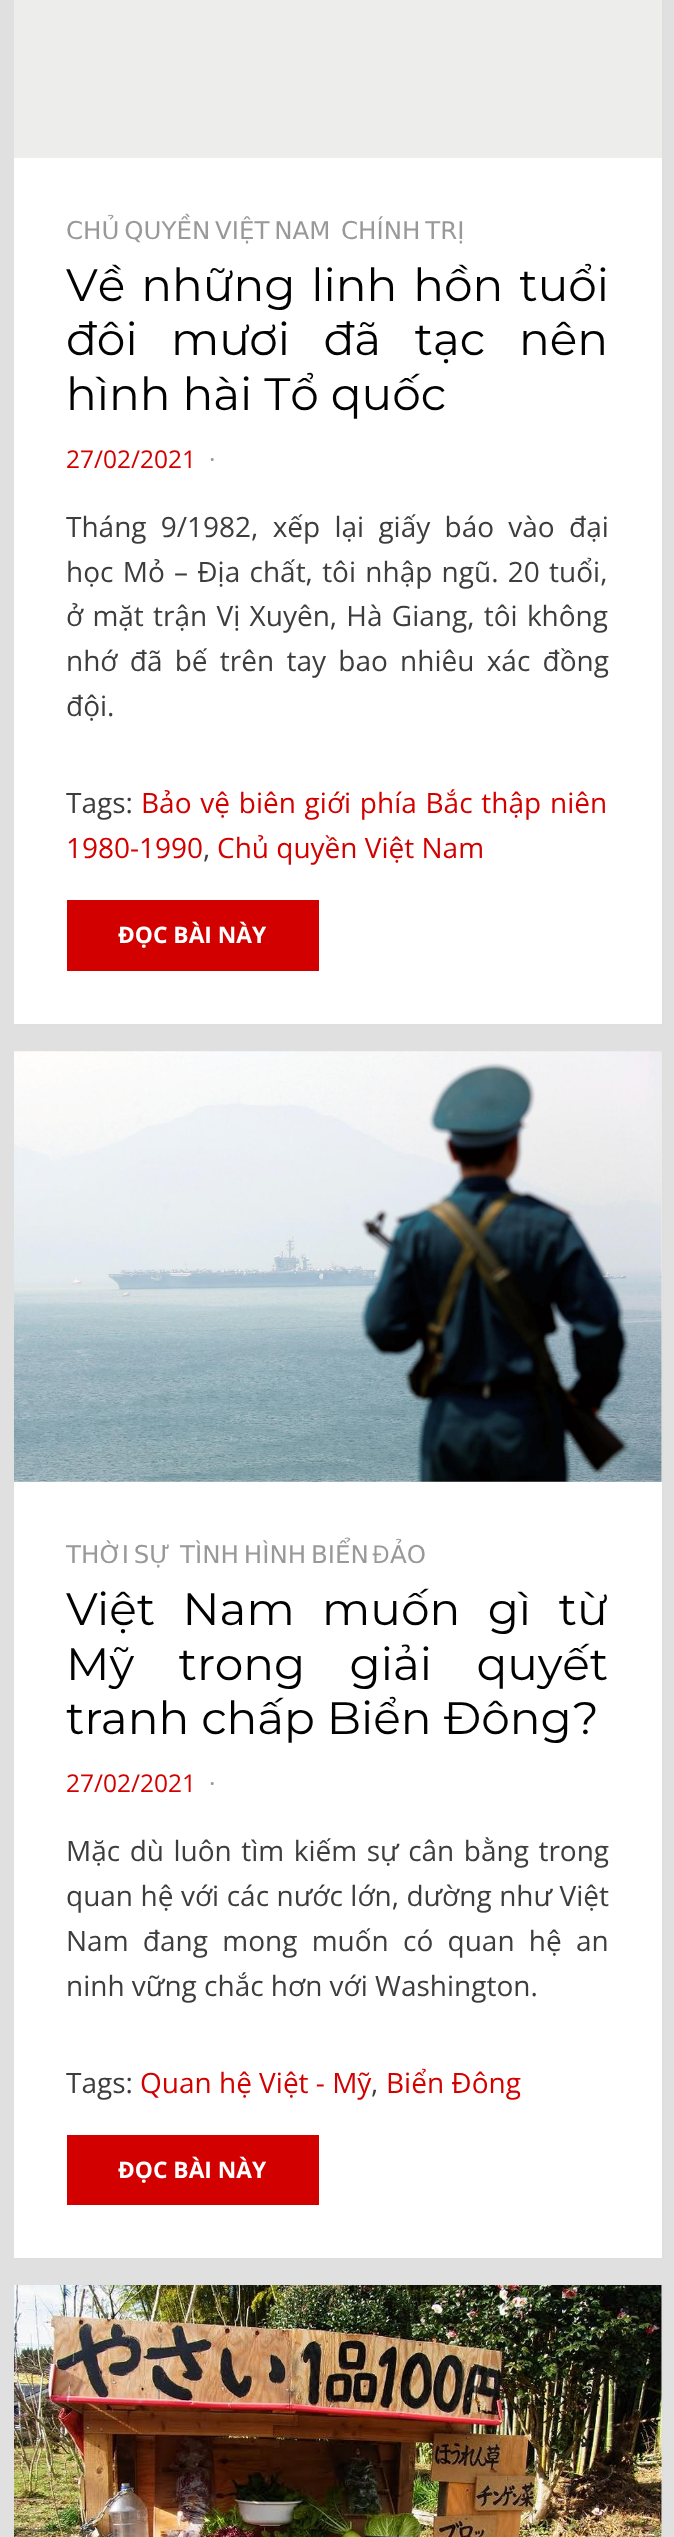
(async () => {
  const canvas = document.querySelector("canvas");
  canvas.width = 674;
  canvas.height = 2537;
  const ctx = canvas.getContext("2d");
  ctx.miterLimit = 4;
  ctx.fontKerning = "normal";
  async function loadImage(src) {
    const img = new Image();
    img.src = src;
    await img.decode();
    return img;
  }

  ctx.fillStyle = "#e0e0e0";
  ctx.fillRect(0, 0, 674, 2537);
  for (const [x, y, w, h, color] of [
    [14, 158, 648, 866, "#ffffff"],
    [662, 0, 2, 1026, "#dfdfdd"],
    [14, 1024, 649, 2, "#dfdfdd"],
    [14, 0, 648, 158, "#ededeb"],
    [67, 900, 252, 71, "#d30000"],
    [14, 1482, 648, 776, "#ffffff"],
    [662, 1052, 2, 1207, "#dfdfdd"],
    [14, 2258, 649, 2, "#dfdfdd"],
    [14, 1052, 648, 430, "#ededeb"],
  ]) {
    ctx.fillStyle = color;
    ctx.fillRect(x, y, w, h);
  }
  ctx.drawImage(await loadImage("img/1.png"), 14, 1051, 648, 431);
  for (const [x, y, w, h, color] of [
    [67, 2135, 252, 70, "#d30000"],
    [662, 2286, 2, 251, "#dfdfdd"],
    [661, 2286, 1, 251, "#ededeb"],
  ]) {
    ctx.fillStyle = color;
    ctx.fillRect(x, y, w, h);
  }
  ctx.drawImage(await loadImage("img/2.png"), 14, 2285, 648, 252);
  ctx.wordSpacing = "-3px";
  ctx.font = "24.5px DejaVu Sans";
  ctx.fillStyle = "#999999";
  ctx.fillText("CHỦ QUYỀN VIỆT NAM⠀", 66, 239);
  ctx.fillText("CHÍNH TRỊ⠀", 341, 239);
  ctx.wordSpacing = "4px";
  ctx.font = "45.5px Montserrat";
  ctx.fillStyle = "#020202";
  ctx.fillText("Về những linh hồn tuổi", 66, 301);
  ctx.wordSpacing = "21.5px";
  ctx.fillText("đôi mươi đã tạc nên", 66, 355);
  ctx.wordSpacing = "0px";
  ctx.fillText("hình hài Tổ quốc", 66, 410);
  ctx.font = "24.5px Open Sans";
  ctx.fillStyle = "#d30000";
  ctx.fillText("27/02/2021", 66, 468);
  ctx.fillStyle = "#999999";
  ctx.fillText("·", 209, 468);
  ctx.wordSpacing = "7px";
  ctx.font = "28px Open Sans";
  ctx.fillStyle = "#3d3d3d";
  ctx.fillText("Tháng 9/1982, xếp lại giấy báo vào đại", 66, 537);
  ctx.wordSpacing = "2px";
  ctx.fillText("học Mỏ – Địa chất, tôi nhập ngũ. 20 tuổi,", 66, 582);
  ctx.fillText("ở mặt trận Vị Xuyên, Hà Giang, tôi không", 66, 626);
  ctx.wordSpacing = "5px";
  ctx.fillText("nhớ đã bế trên tay bao nhiêu xác đồng", 66, 671);
  ctx.wordSpacing = "0px";
  ctx.fillText("đội.", 66, 716);
  ctx.fillText("Tags:", 66, 813);
  ctx.wordSpacing = "1.5px";
  ctx.fillStyle = "#d30000";
  ctx.fillText("Bảo vệ biên giới phía Bắc thập niên", 141, 813);
  ctx.wordSpacing = "0px";
  ctx.fillText("1980-1990", 66, 858);
  ctx.fillStyle = "#3d3d3d";
  ctx.fillText(",", 203, 858);
  ctx.fillStyle = "#d30000";
  ctx.fillText("Chủ quyền Việt Nam", 217, 858);
  ctx.font = "bold 22.75px Open Sans";
  ctx.fillStyle = "#ffffff";
  ctx.fillText("ĐỌC BÀI NÀY", 118, 943);
  ctx.wordSpacing = "-3px";
  ctx.font = "24.5px DejaVu Sans";
  ctx.fillStyle = "#999999";
  ctx.fillText("THỜI SỰ⠀", 66, 1563);
  ctx.fillText("TÌNH HÌNH BIỂN", 180, 1563);
  ctx.wordSpacing = "0px";
  ctx.font = "24.5px Open Sans";
  ctx.fillText("Đ", 372, 1563);
  ctx.font = "24.5px DejaVu Sans";
  ctx.fillText("ẢO⠀", 390, 1563);
  ctx.wordSpacing = "15.5px";
  ctx.font = "45.5px Montserrat";
  ctx.fillStyle = "#020202";
  ctx.fillText("Việt Nam muốn gì từ", 66, 1625);
  ctx.wordSpacing = "32.5px";
  ctx.fillText("Mỹ trong giải quyết", 66, 1680);
  ctx.wordSpacing = "0px";
  ctx.fillText("tranh chấp Biển Đông?", 66, 1734);
  ctx.font = "24.5px Open Sans";
  ctx.fillStyle = "#d30000";
  ctx.fillText("27/02/2021", 66, 1792);
  ctx.fillStyle = "#999999";
  ctx.fillText("·", 209, 1792);
  ctx.wordSpacing = "2.25px";
  ctx.font = "28px Open Sans";
  ctx.fillStyle = "#3d3d3d";
  ctx.fillText("Mặc dù luôn tìm kiếm sự cân bằng trong", 66, 1861);
  ctx.wordSpacing = "0.25px";
  ctx.fillText("quan hệ với các nước lớn, dường như Việt", 66, 1906);
  ctx.wordSpacing = "7px";
  ctx.fillText("Nam đang mong muốn có quan hệ an", 66, 1951);
  ctx.wordSpacing = "0px";
  ctx.fillText("ninh vững chắc hơn với Washington.", 66, 1996);
  ctx.fillText("Tags:", 66, 2093);
  ctx.fillStyle = "#d30000";
  ctx.fillText("Quan hệ Việt - Mỹ", 140, 2093);
  ctx.fillStyle = "#3d3d3d";
  ctx.fillText(",", 371, 2093);
  ctx.fillStyle = "#d30000";
  ctx.fillText("Biển Đông", 386, 2093);
  ctx.font = "bold 22.75px Open Sans";
  ctx.fillStyle = "#ffffff";
  ctx.fillText("ĐỌC BÀI NÀY", 118, 2178);
})();
